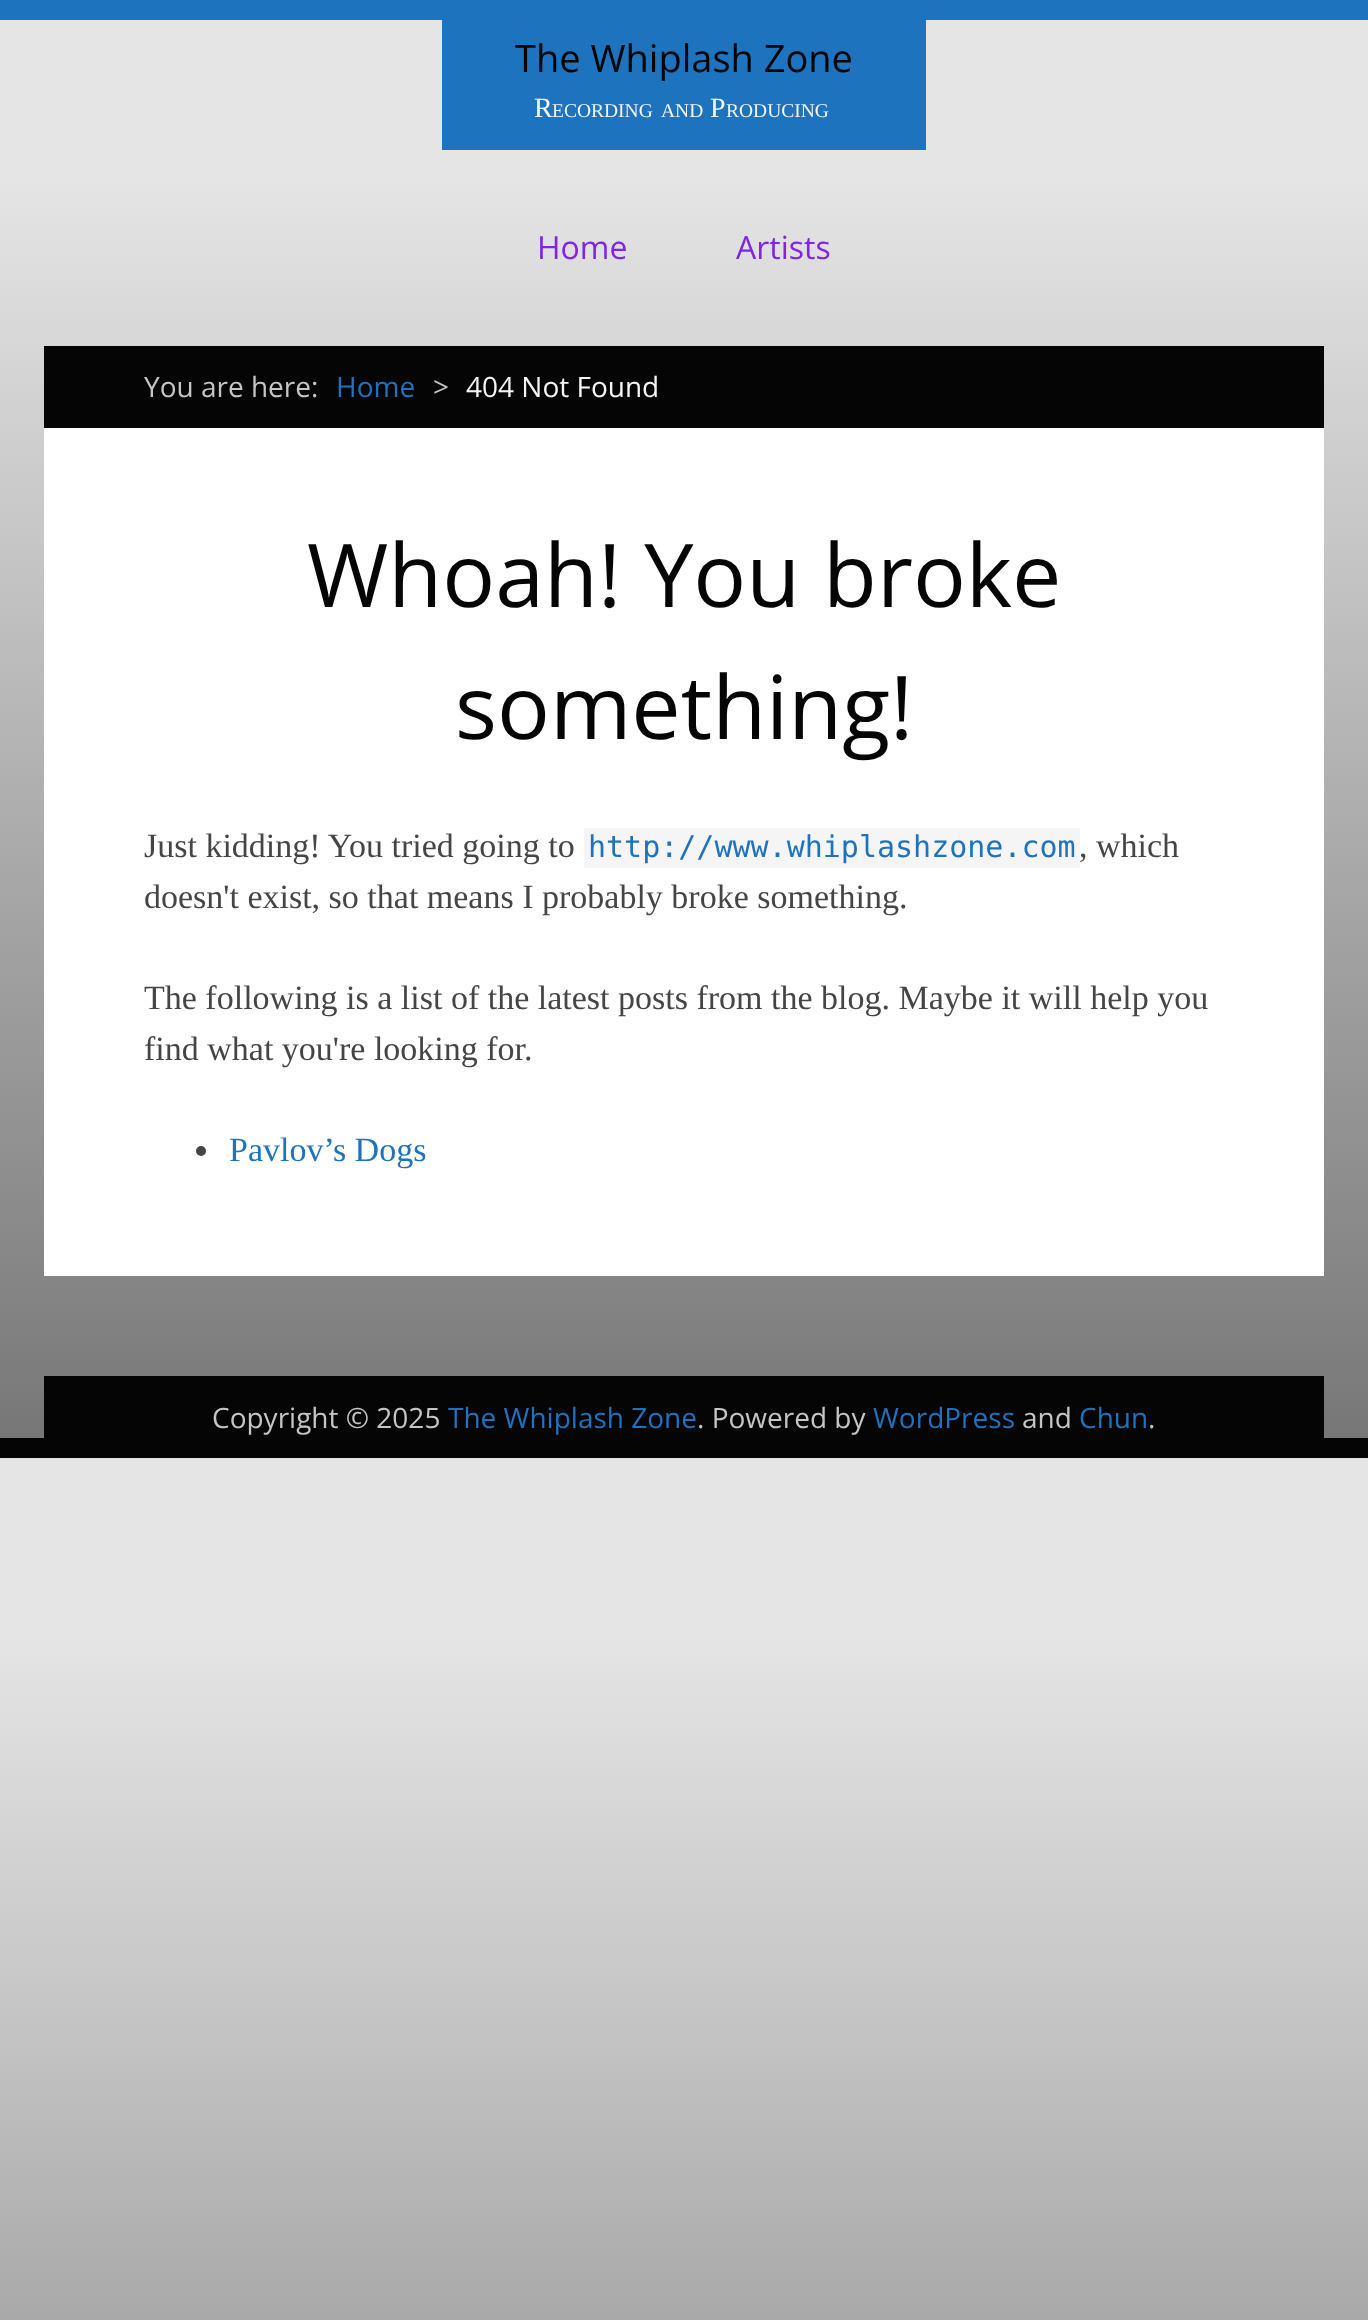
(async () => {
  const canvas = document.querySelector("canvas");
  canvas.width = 1368;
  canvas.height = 2320;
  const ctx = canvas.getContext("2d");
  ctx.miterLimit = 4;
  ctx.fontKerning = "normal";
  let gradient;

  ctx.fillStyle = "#ffffff";
  ctx.fillRect(0, 0, 1368, 2320);
  gradient = ctx.createLinearGradient(684, 0, 684, 1458);
  gradient.addColorStop(0.12, "#e5e5e5");
  gradient.addColorStop(0.25, "#d5d5d5");
  gradient.addColorStop(0.38, "#c5c5c5");
  gradient.addColorStop(0.5, "#b5b5b5");
  gradient.addColorStop(0.62, "#a5a5a5");
  gradient.addColorStop(0.75, "#959595");
  gradient.addColorStop(0.88, "#858585");
  gradient.addColorStop(1, "#757575");
  ctx.fillStyle = gradient;
  ctx.fillRect(0, 20, 1368, 1418);
  gradient = ctx.createLinearGradient(684, 1458, 684, 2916);
  gradient.addColorStop(0.12, "#e5e5e5");
  gradient.addColorStop(0.25, "#d5d5d5");
  gradient.addColorStop(0.38, "#c5c5c5");
  gradient.addColorStop(0.5, "#b5b5b5");
  gradient.addColorStop(0.62, "#a5a5a5");
  gradient.addColorStop(0.75, "#959595");
  gradient.addColorStop(0.88, "#858585");
  gradient.addColorStop(1, "#757575");
  ctx.fillStyle = gradient;
  ctx.fillRect(0, 1458, 1368, 862);
  for (const [x, y, w, h, color] of [
    [0, 0, 1368, 20, "#1e73be"],
    [0, 1438, 1368, 20, "#050505"],
    [442, 20, 484, 130, "#1e73be"],
    [44, 346, 1280, 82, "#050505"],
    [44, 428, 1280, 848, "#ffffff"],
    [584, 828, 496, 40, "#f5f5f5"],
  ]) {
    ctx.fillStyle = color;
    ctx.fillRect(x, y, w, h);
  }
  ctx.fillStyle = "#454545";
  ctx.beginPath();
  ctx.arc(201, 1151, 5, 0, Math.PI * 2);
  ctx.fill();
  ctx.fillStyle = "#050505";
  ctx.fillRect(44, 1376, 1280, 62);
  ctx.font = "38px Open Sans";
  ctx.fillText("The Whiplash Zone", 515, 72);
  ctx.font = "28px Liberation Serif";
  ctx.fillStyle = "#f5f5f5";
  ctx.fillText("R", 534, 117);
  ctx.font = "19.5px Liberation Serif";
  ctx.fillText("ECORDING", 552, 117);
  ctx.fillText("AND", 661, 117);
  ctx.font = "28px Liberation Serif";
  ctx.fillText("P", 710, 117);
  ctx.font = "19.5px Liberation Serif";
  ctx.fillText("RODUCING", 726, 117);
  ctx.font = "32px Open Sans";
  ctx.fillStyle = "#8224e3";
  ctx.fillText("Home", 537, 259);
  ctx.fillText("Artists", 736, 259);
  ctx.font = "28px Open Sans";
  ctx.fillStyle = "#c5c5c5";
  ctx.fillText("You are here:", 144, 397);
  ctx.fillStyle = "#1e73be";
  ctx.fillText("Home", 336, 397);
  ctx.fillStyle = "#c5c5c5";
  ctx.fillText(">", 433, 397);
  ctx.fillStyle = "#f5f5f5";
  ctx.fillText("404 Not Found", 466, 397);
  ctx.font = "88px Open Sans";
  ctx.fillStyle = "#050505";
  ctx.fillText("Whoah! You broke", 307, 607);
  ctx.fillText("something!", 455, 739);
  ctx.font = "34px Liberation Serif";
  ctx.fillStyle = "#454545";
  ctx.fillText("Just kidding! You tried going to", 144, 857);
  ctx.font = "30px DejaVu Sans Mono";
  ctx.fillStyle = "#1e73be";
  ctx.fillText("http://www.whiplashzone.com", 588, 857);
  ctx.font = "34px Liberation Serif";
  ctx.fillStyle = "#454545";
  for (const [text, x, y] of [
    [", which", 1079, 857],
    ["doesn't exist, so that means I probably broke something.", 144, 908],
    ["The following is a list of the latest posts from the blog. Maybe it will help you", 144, 1009],
    ["find what you're looking for.", 144, 1060],
  ]) {
    ctx.fillText(text, x, y);
  }
  ctx.fillStyle = "#1e73be";
  ctx.fillText("Pavlov’s Dogs", 229, 1161);
  ctx.font = "28px Open Sans";
  ctx.fillStyle = "#c5c5c5";
  ctx.fillText("Copyright © 2025", 212, 1428);
  ctx.fillStyle = "#1e73be";
  ctx.fillText("The Whiplash Zone", 448, 1428);
  ctx.fillStyle = "#c5c5c5";
  ctx.fillText(". Powered by", 697, 1428);
  ctx.fillStyle = "#1e73be";
  ctx.fillText("WordPress", 873, 1428);
  ctx.fillStyle = "#c5c5c5";
  ctx.fillText("and", 1022, 1428);
  ctx.fillStyle = "#1e73be";
  ctx.fillText("Chun", 1079, 1428);
  ctx.fillStyle = "#c5c5c5";
  ctx.fillText(".", 1148, 1428);
})();
